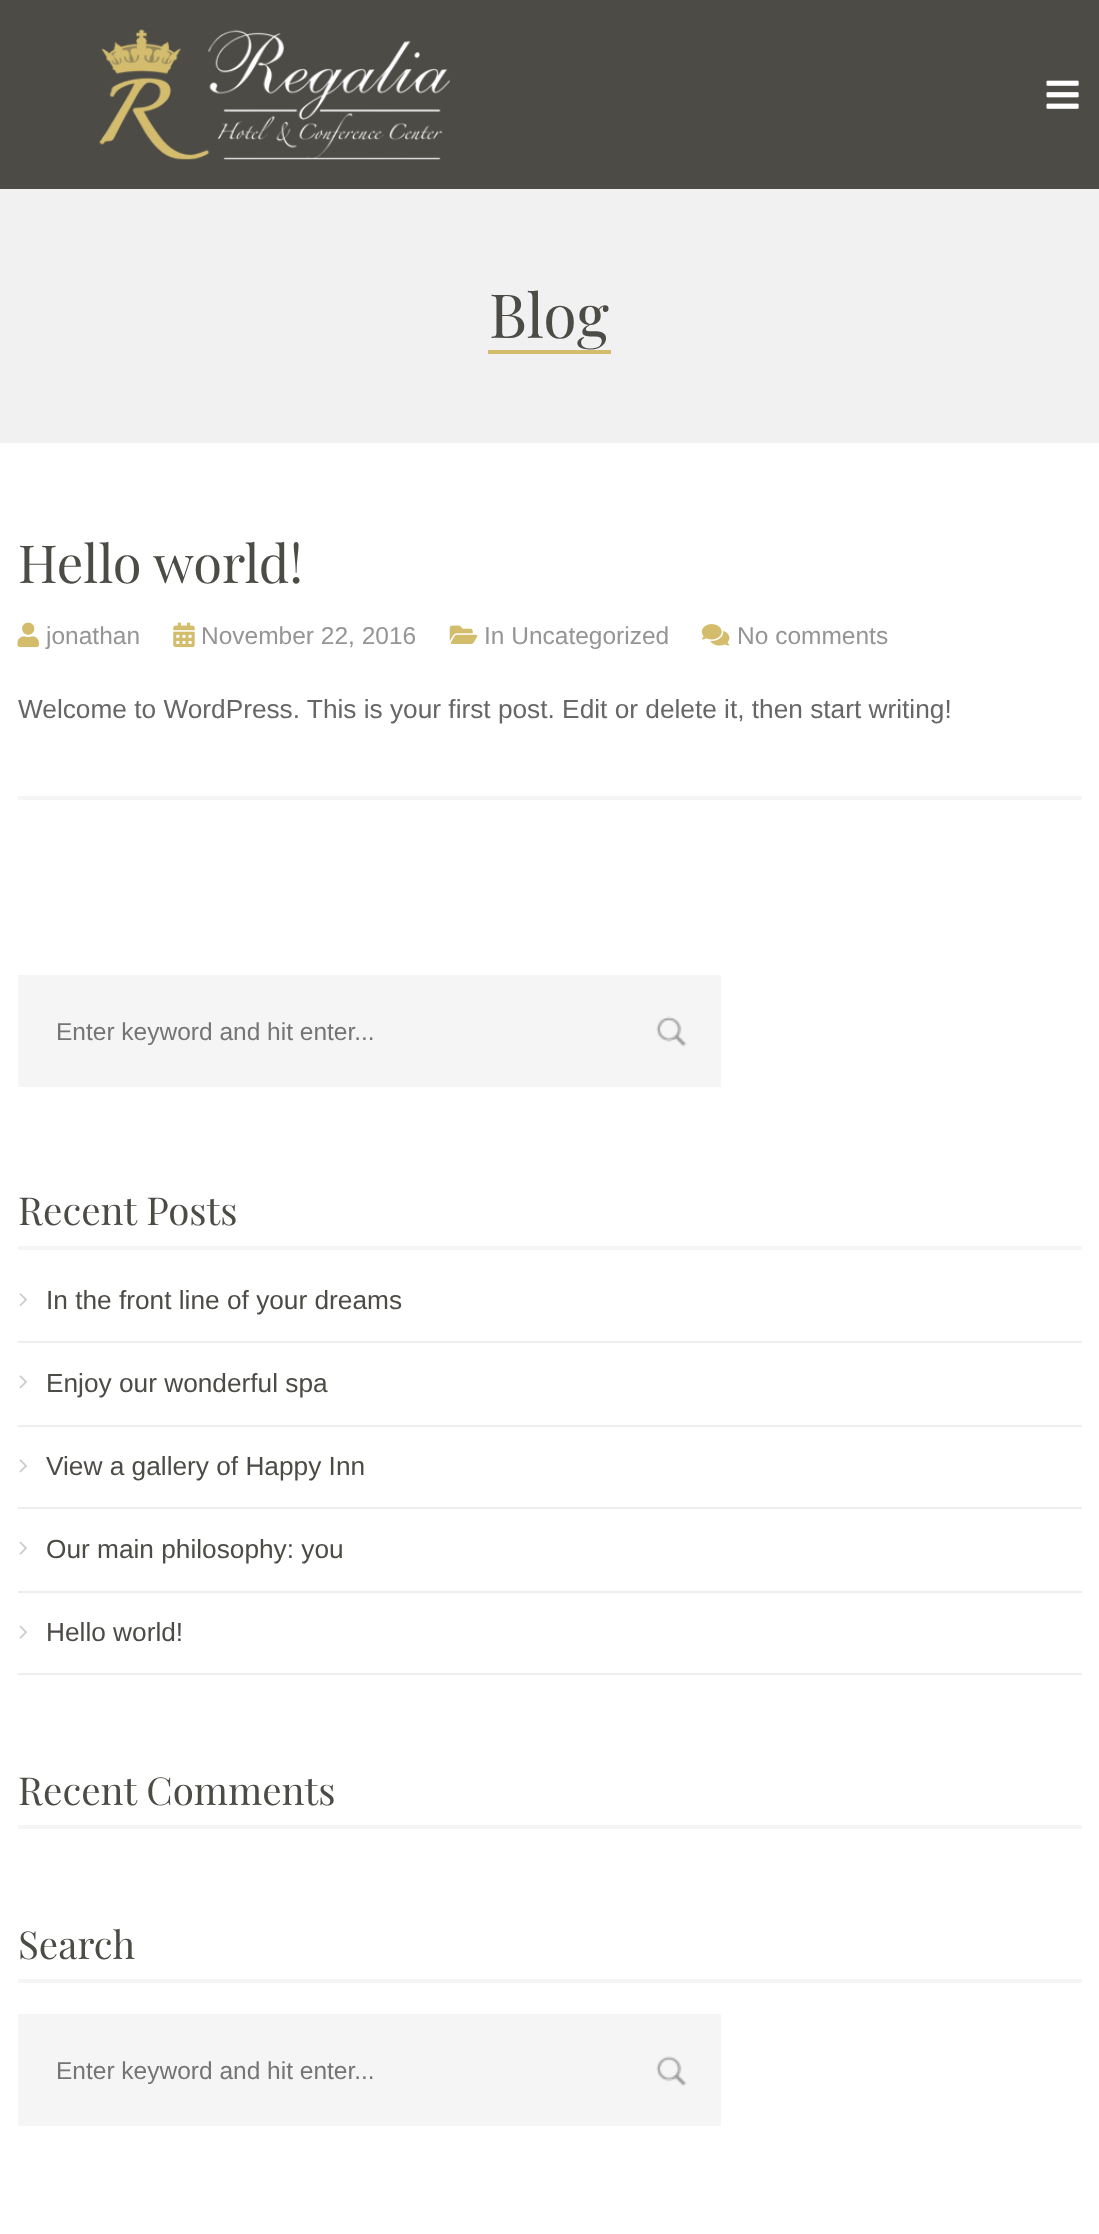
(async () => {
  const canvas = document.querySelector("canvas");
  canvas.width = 1099;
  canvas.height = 2234;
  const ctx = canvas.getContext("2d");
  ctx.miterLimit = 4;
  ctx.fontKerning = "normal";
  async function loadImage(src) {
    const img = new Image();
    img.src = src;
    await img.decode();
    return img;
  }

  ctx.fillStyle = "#ffffff";
  ctx.fillRect(0, 0, 1099, 2234);
  ctx.fillStyle = "#4c4b46";
  ctx.fillRect(0, 0, 1099, 189);
  ctx.drawImage(await loadImage("img/1.png"), 99, 29, 351, 131);
  ctx.drawImage(await loadImage("img/2.png"), 1046, 80, 33, 29);
  ctx.fillStyle = "#f1f1f1";
  ctx.fillRect(0, 189, 1099, 254);
  ctx.fillStyle = "#d3bc6e";
  ctx.fillRect(488, 350, 123, 4);
  ctx.drawImage(await loadImage("img/3.png"), 17, 622, 22, 26);
  ctx.drawImage(await loadImage("img/4.png"), 173, 622, 22, 26);
  ctx.drawImage(await loadImage("img/5.png"), 449, 625, 29, 19);
  ctx.drawImage(await loadImage("img/6.png"), 701, 624, 29, 22);
  ctx.fillStyle = "#f5f5f5";
  ctx.fillRect(18, 796, 1064, 4);
  ctx.fillRect(18, 975, 703, 112);
  ctx.drawImage(await loadImage("img/7.png"), 656, 1016, 31, 31);
  ctx.fillRect(18, 1246, 1064, 4);
  ctx.fillStyle = "#eeeeee";
  ctx.fillRect(18, 1341, 1064, 2);
  ctx.drawImage(await loadImage("img/8.png"), 19, 1293, 8, 14);
  ctx.fillRect(18, 1425, 1064, 2);
  ctx.drawImage(await loadImage("img/9.png"), 19, 1375, 8, 14);
  ctx.fillRect(18, 1507, 1064, 2);
  ctx.drawImage(await loadImage("img/9.png"), 19, 1459, 8, 14);
  ctx.fillRect(18, 1591, 1064, 2);
  ctx.drawImage(await loadImage("img/10.png"), 19, 1541, 8, 14);
  ctx.fillRect(18, 1673, 1064, 2);
  ctx.drawImage(await loadImage("img/10.png"), 19, 1625, 8, 14);
  for (const [x, y, w, h, color] of [
    [18, 1825, 1064, 4, "#f5f5f5"],
    [18, 1979, 1064, 4, "#f5f5f5"],
    [18, 2014, 703, 112, "#f5f5f5"],
  ]) {
    ctx.fillStyle = color;
    ctx.fillRect(x, y, w, h);
  }
  ctx.drawImage(await loadImage("img/11.png"), 656, 2056, 31, 31);
  ctx.font = "61px Playfair Display";
  ctx.fillStyle = "#4c4b46";
  ctx.fillText("Blog", 489, 338);
  ctx.font = "52.5px Playfair Display";
  ctx.fillText("Hello world!", 18, 583);
  ctx.font = "24.5px Arimo";
  ctx.fillStyle = "#959595";
  for (const [text, x, y] of [
    ["jonathan", 46, 644],
    ["November 22, 2016", 201, 644],
    ["In Uncategorized", 484, 644],
    ["No comments", 737, 644],
  ]) {
    ctx.fillText(text, x, y);
  }
  ctx.font = "26.25px Arimo";
  ctx.fillStyle = "#666666";
  ctx.fillText("Welcome to WordPress. This is your first post. Edit or delete it, then start writing!", 18, 718);
  ctx.font = "24.5px Arimo";
  ctx.fillStyle = "#757575";
  ctx.fillText("Enter keyword and hit enter...", 56, 1040);
  ctx.font = "38.5px Playfair Display";
  ctx.fillStyle = "#4c4b46";
  ctx.fillText("Recent Posts", 18, 1225);
  ctx.font = "26.25px Arimo";
  for (const [text, x, y] of [
    ["In the front line of your dreams", 46, 1309],
    ["Enjoy our wonderful spa", 46, 1392],
    ["View a gallery of Happy Inn", 46, 1475],
    ["Our main philosophy: you", 46, 1558],
    ["Hello world!", 46, 1641],
  ]) {
    ctx.fillText(text, x, y);
  }
  ctx.font = "38.5px Playfair Display";
  ctx.fillText("Recent Comments", 18, 1805);
  ctx.fillText("Search", 18, 1959);
  ctx.font = "24.5px Arimo";
  ctx.fillStyle = "#757575";
  ctx.fillText("Enter keyword and hit enter...", 56, 2079);
})();
